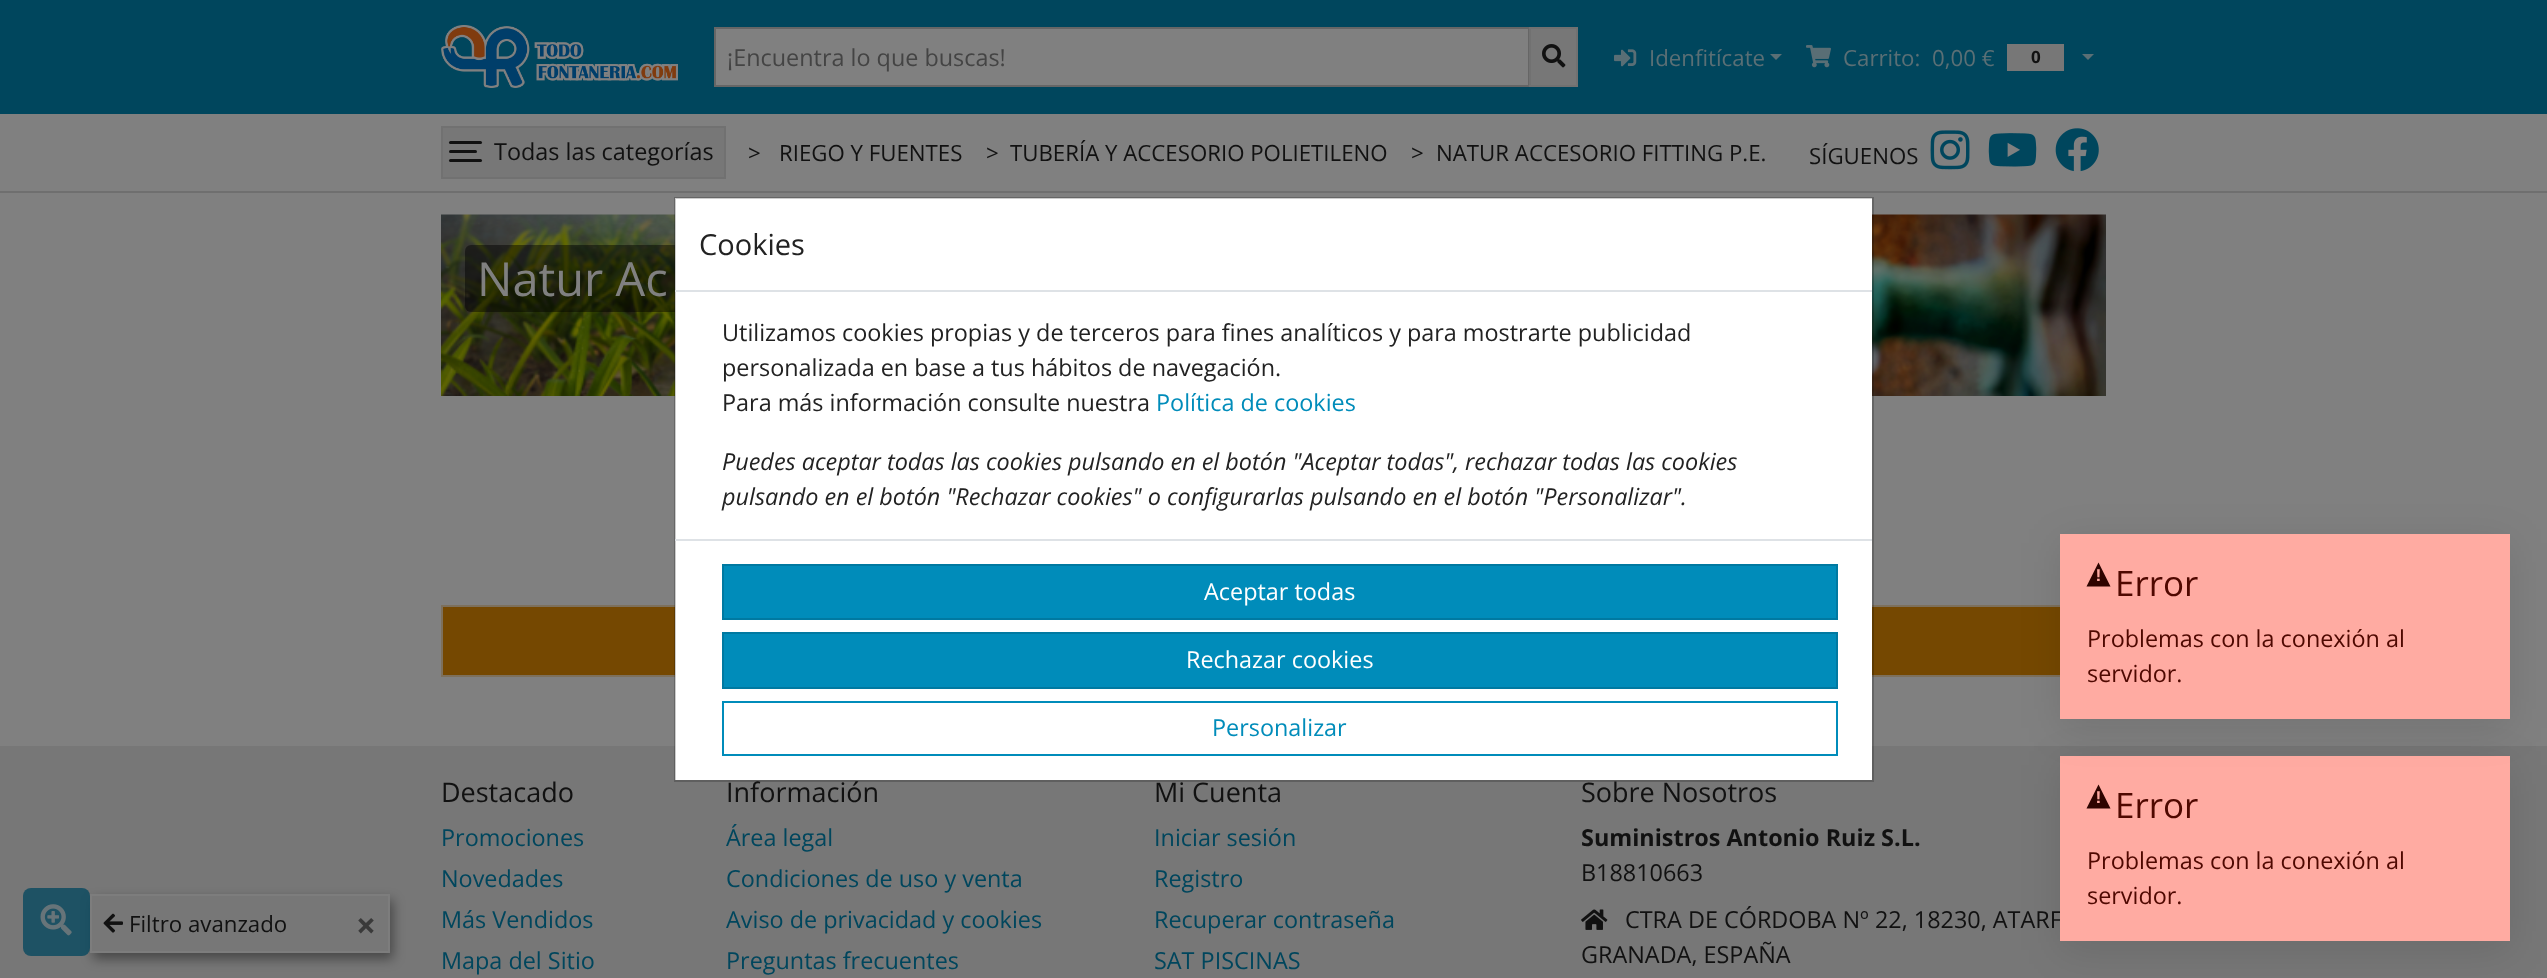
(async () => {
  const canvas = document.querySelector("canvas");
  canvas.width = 2547;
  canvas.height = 978;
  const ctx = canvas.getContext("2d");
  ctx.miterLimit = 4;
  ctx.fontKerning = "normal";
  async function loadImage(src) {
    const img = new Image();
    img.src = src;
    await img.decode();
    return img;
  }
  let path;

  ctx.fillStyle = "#808080";
  ctx.fillRect(0, 0, 2547, 978);
  ctx.fillStyle = "#00465d";
  ctx.fillRect(0, 0, 2547, 114);
  ctx.drawImage(await loadImage("img/1.png"), 441, 25, 237, 63);
  ctx.fillStyle = "#808080";
  ctx.beginPath();
  ctx.rect(715, 28, 814, 58);
  ctx.fill();
  ctx.strokeStyle = "#666666";
  ctx.lineWidth = 2;
  ctx.stroke();
  ctx.fillStyle = "#777777";
  ctx.beginPath();
  ctx.rect(1530, 28, 47, 58);
  ctx.fill();
  ctx.strokeStyle = "#717171";
  ctx.stroke();
  ctx.drawImage(await loadImage("img/2.png"), 1542, 44, 24, 24);
  ctx.drawImage(await loadImage("img/3.png"), 1614, 49, 23, 18);
  ctx.fillStyle = "#5a6f75";
  path = new Path2D("M1770 54H1782L1776 60Z");
  ctx.fill(path);
  ctx.drawImage(await loadImage("img/4.png"), 1806, 45, 25, 23);
  ctx.fillStyle = "#777777";
  ctx.fillRect(2007, 44, 57, 27);
  ctx.fillStyle = "#5a6f75";
  path = new Path2D("M2082 54H2094L2088 60Z");
  ctx.fill(path);
  ctx.fillStyle = "#6f6f6f";
  ctx.fillRect(0, 191, 2547, 2);
  ctx.fillStyle = "#777777";
  ctx.beginPath();
  ctx.rect(442, 127, 283, 51);
  ctx.fill();
  ctx.stroke();
  ctx.fillStyle = "#111111";
  ctx.beginPath();
  ctx.roundRect(449, 141, 33, 3, 1.5);
  ctx.fill();
  ctx.beginPath();
  ctx.roundRect(449, 150, 28, 3, 1.5);
  ctx.fill();
  ctx.beginPath();
  ctx.roundRect(449, 159, 33, 3, 1.5);
  ctx.fill();
  ctx.drawImage(await loadImage("img/5.png"), 1930, 130, 40, 40);
  ctx.drawImage(await loadImage("img/6.png"), 1988, 133, 49, 34);
  ctx.drawImage(await loadImage("img/7.png"), 2055, 128, 44, 44);
  ctx.drawImage(await loadImage("img/8.png"), 441, 214, 1665, 182);
  ctx.fillStyle = "rgba(0, 0, 0, 0.45)";
  ctx.beginPath();
  ctx.roundRect(465, 245, 611, 67, 6);
  ctx.fill();
  ctx.fillStyle = "#754801";
  ctx.fillRect(443, 607, 1617, 68);
  ctx.strokeStyle = "#7d705c";
  ctx.strokeRect(442, 606, 1663, 70);
  ctx.fillStyle = "#777777";
  ctx.fillRect(0, 746, 2547, 232);
  ctx.fillStyle = "#ffffff";
  ctx.fillRect(675, 198, 1197, 582);
  ctx.drawImage(await loadImage("img/9.png"), 1581, 909, 27, 21);
  ctx.fillStyle = "rgba(0, 0, 0, 0.1)";
  ctx.filter = "blur(21px)";
  ctx.beginPath();
  ctx.rect(2060, 765, 450, 185);
  ctx.fill();
  ctx.filter = "none";
  ctx.fillStyle = "rgba(0, 0, 0, 0.4)";
  ctx.filter = "blur(6px)";
  ctx.beginPath();
  ctx.rect(93, 900, 300, 59);
  ctx.fill();
  ctx.filter = "none";
  ctx.fillStyle = "rgba(0, 70, 93, 0.75)";
  ctx.beginPath();
  ctx.roundRect(23, 888, 67, 68, 8);
  ctx.fill();
  ctx.drawImage(await loadImage("img/10.png"), 40, 904, 32, 32);
  ctx.fillStyle = "#777777";
  ctx.beginPath();
  ctx.rect(91, 895, 298, 57);
  ctx.fill();
  ctx.strokeStyle = "#7d7d7d";
  ctx.stroke();
  ctx.drawImage(await loadImage("img/11.png"), 103, 913, 20, 20);
  ctx.font = "23.4px Open Sans";
  ctx.fillStyle = "#444444";
  ctx.fillText("¡Encuentra lo que buscas!", 727, 66);
  ctx.font = "22.25px Open Sans";
  ctx.fillStyle = "#5a6f75";
  for (const [text, x, y] of [
    ["Idenfitícate", 1649, 66],
    ["Carrito:", 1843, 66],
    ["0,00 €", 1932, 66],
  ]) {
    ctx.fillText(text, x, y);
  }
  ctx.font = "bold 17px Open Sans";
  ctx.fillStyle = "#111111";
  ctx.fillText("0", 2031, 63);
  ctx.font = "23.4px Open Sans";
  ctx.fillText("Todas las categorías", 494, 160);
  ctx.font = "22.25px Open Sans";
  for (const [text, x, y] of [
    [">", 748, 161],
    ["RIEGO Y FUENTES", 779, 161],
    [">", 986, 161],
    ["TUBERÍA Y ACCESORIO POLIETILENO", 1010, 161],
    [">", 1411, 161],
    ["NATUR ACCESORIO FITTING P.E.", 1436, 161],
    ["SÍGUENOS", 1809, 164],
  ]) {
    ctx.fillText(text, x, y);
  }
  ctx.font = "47px Open Sans";
  ctx.fillStyle = "#808080";
  ctx.fillText("Natur Ac", 477, 296);
  ctx.font = "27px Open Sans";
  ctx.fillStyle = "#111111";
  ctx.fillText("Destacado", 441, 802);
  ctx.font = "23.4px Open Sans";
  ctx.fillStyle = "#00465d";
  for (const [text, x, y] of [
    ["Promociones", 441, 846],
    ["Novedades", 441, 887],
    ["Más Vendidos", 441, 928],
    ["Mapa del Sitio", 441, 969],
  ]) {
    ctx.fillText(text, x, y);
  }
  ctx.font = "27px Open Sans";
  ctx.fillStyle = "#111111";
  ctx.fillText("Información", 726, 802);
  ctx.font = "23.4px Open Sans";
  ctx.fillStyle = "#00465d";
  for (const [text, x, y] of [
    ["Área legal", 726, 846],
    ["Condiciones de uso y venta", 726, 887],
    ["Aviso de privacidad y cookies", 726, 928],
    ["Preguntas frecuentes", 726, 969],
  ]) {
    ctx.fillText(text, x, y);
  }
  ctx.font = "27px Open Sans";
  ctx.fillStyle = "#111111";
  ctx.fillText("Mi Cuenta", 1154, 802);
  ctx.font = "23.4px Open Sans";
  ctx.fillStyle = "#00465d";
  for (const [text, x, y] of [
    ["Iniciar sesión", 1154, 846],
    ["Registro", 1154, 887],
    ["Recuperar contraseña", 1154, 928],
    ["SAT PISCINAS", 1154, 969],
  ]) {
    ctx.fillText(text, x, y);
  }
  ctx.font = "27px Open Sans";
  ctx.fillStyle = "#111111";
  ctx.fillText("Sobre Nosotros", 1581, 802);
  ctx.strokeStyle = "rgba(0, 0, 0, 0.2)";
  ctx.strokeRect(675, 198, 1198, 583);
  ctx.strokeStyle = "#008cba";
  ctx.strokeRect(723, 702, 1114, 53);
  ctx.font = "23.4px Open Sans";
  ctx.fillStyle = "#008cba";
  ctx.fillText("Personalizar", 1212, 736);
  ctx.beginPath();
  ctx.rect(723, 633, 1114, 55);
  ctx.fill();
  ctx.strokeStyle = "#0079a1";
  ctx.stroke();
  ctx.fillStyle = "#ffffff";
  ctx.fillText("Rechazar cookies", 1186, 668);
  ctx.fillStyle = "#008cba";
  ctx.beginPath();
  ctx.rect(723, 565, 1114, 54);
  ctx.fill();
  ctx.stroke();
  ctx.fillStyle = "#ffffff";
  ctx.fillText("Aceptar todas", 1204, 600);
  ctx.font = "italic 23.4px Open Sans";
  ctx.fillStyle = "#222222";
  ctx.fillText("pulsando en el botón \"Rechazar cookies\" o configurarlas pulsando en el botón \"Personalizar\".", 722, 505);
  ctx.fillText("Puedes aceptar todas las cookies pulsando en el botón \"Aceptar todas\", rechazar todas las cookies", 722, 470);
  ctx.font = "23.4px Open Sans";
  ctx.fillStyle = "#008cba";
  ctx.fillText("Política de cookies", 1156, 411);
  ctx.fillStyle = "#222222";
  for (const [text, x, y] of [
    ["Para más información consulte nuestra", 722, 411],
    ["personalizada en base a tus hábitos de navegación.", 722, 376],
    ["Utilizamos cookies propias y de terceros para fines analíticos y para mostrarte publicidad", 722, 341],
  ]) {
    ctx.fillText(text, x, y);
  }
  ctx.fillStyle = "#dee2e6";
  ctx.fillRect(675, 539, 1197, 2);
  ctx.font = "29px Open Sans";
  ctx.fillStyle = "#222222";
  ctx.fillText("Cookies", 699, 255);
  ctx.fillStyle = "#dee2e6";
  ctx.fillRect(675, 290, 1197, 2);
  ctx.font = "bold 23.4px Open Sans";
  ctx.fillStyle = "#111111";
  ctx.fillText("Suministros Antonio Ruiz S.L.", 1581, 846);
  ctx.font = "23.4px Open Sans";
  for (const [text, x, y] of [
    ["B18810663", 1581, 881],
    ["CTRA DE CÓRDOBA Nº 22, 18230, ATARF", 1625, 928],
    ["GRANADA, ESPAÑA", 1581, 963],
  ]) {
    ctx.fillText(text, x, y);
  }
  ctx.fillStyle = "#ffaba2";
  ctx.fillRect(2060, 756, 450, 185);
  ctx.fillStyle = "#2e0400";
  path = new Path2D("M2110.5 808.5H2086.5L2098.5 784.5Z");
  ctx.fill(path);
  ctx.fillStyle = "rgba(0, 0, 0, 0.1)";
  ctx.filter = "blur(21px)";
  ctx.beginPath();
  ctx.rect(2060, 543, 450, 185);
  ctx.fill();
  ctx.filter = "none";
  ctx.fillStyle = "#ffaba2";
  ctx.fillRect(2060, 534, 450, 185);
  ctx.fillStyle = "#2e0400";
  path = new Path2D("M2110.5 586.5H2086.5L2098.5 562.5Z");
  ctx.fill(path);
  ctx.font = "bold 18px Liberation Mono";
  ctx.fillStyle = "#ffaba2";
  ctx.fillText("!", 2093, 581);
  ctx.font = "23.4px Open Sans";
  ctx.fillStyle = "#4f0800";
  ctx.fillText("servidor.", 2087, 682);
  ctx.fillText("Problemas con la conexión al", 2087, 647);
  ctx.font = "35px Open Sans";
  ctx.fillText("Error", 2115, 596);
  ctx.font = "bold 18px Liberation Mono";
  ctx.fillStyle = "#ffaba2";
  ctx.fillText("!", 2093, 803);
  ctx.font = "35px Open Sans";
  ctx.fillStyle = "#4f0800";
  ctx.fillText("Error", 2115, 818);
  ctx.font = "23.4px Open Sans";
  ctx.fillText("Problemas con la conexión al", 2087, 869);
  ctx.fillText("servidor.", 2087, 904);
  ctx.font = "22.25px Open Sans";
  ctx.fillStyle = "#111111";
  ctx.fillText("Filtro avanzado", 129, 932);
  ctx.font = "bold 35px Open Sans";
  ctx.fillStyle = "#3a3a3a";
  ctx.fillText("×", 356, 938);
})();
